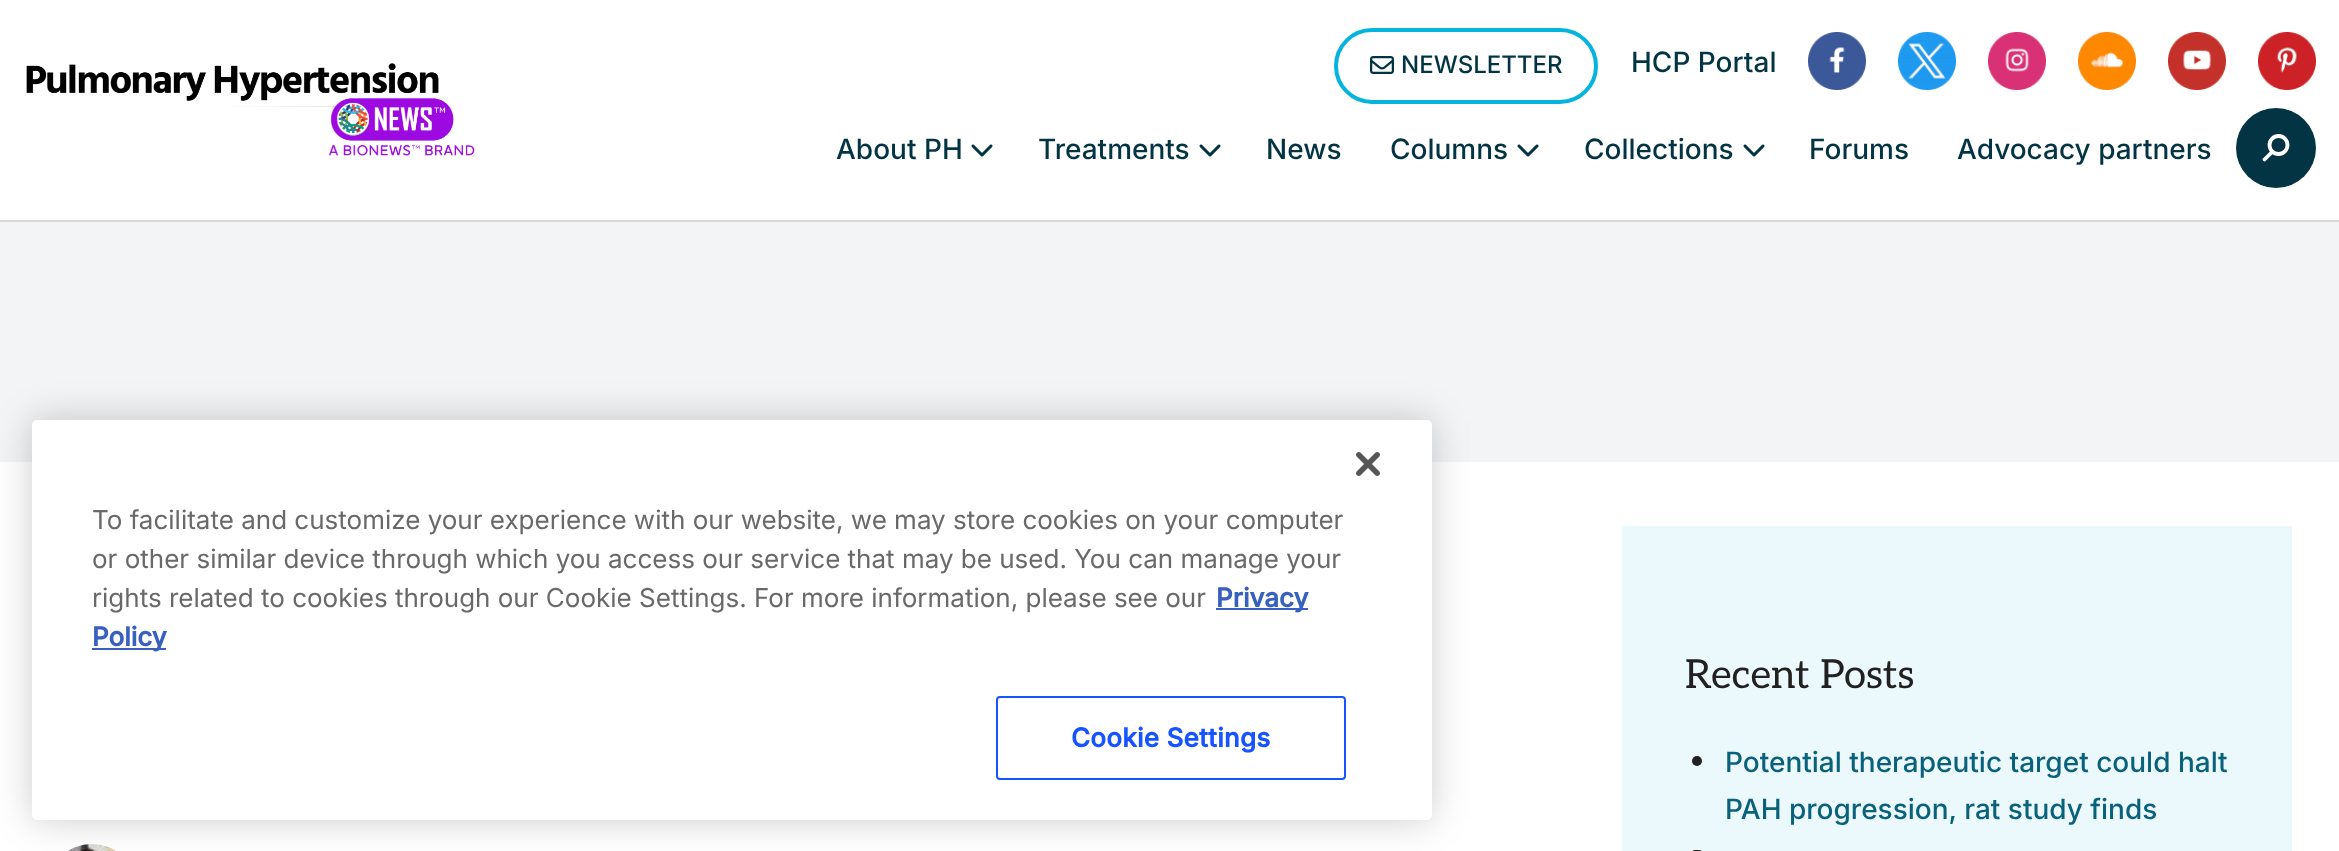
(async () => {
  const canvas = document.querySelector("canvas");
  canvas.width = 2339;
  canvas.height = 851;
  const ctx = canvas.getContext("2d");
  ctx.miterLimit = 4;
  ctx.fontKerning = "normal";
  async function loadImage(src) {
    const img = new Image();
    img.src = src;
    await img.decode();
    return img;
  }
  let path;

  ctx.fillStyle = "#ffffff";
  ctx.fillRect(0, 0, 2339, 851);
  ctx.fillStyle = "#d7d7d7";
  ctx.fillRect(0, 220, 2339, 2);
  ctx.drawImage(await loadImage("img/1.png"), 26, 63, 449, 93);
  ctx.beginPath();
  ctx.roundRect(1336, 30, 260, 72, 36);
  ctx.strokeStyle = "#05b4dd";
  ctx.lineWidth = 4;
  ctx.stroke();
  ctx.drawImage(await loadImage("img/2.png"), 1370, 56, 24, 18);
  ctx.drawImage(await loadImage("img/3.png"), 1808, 32, 58, 58);
  ctx.drawImage(await loadImage("img/4.png"), 1898, 32, 58, 58);
  ctx.drawImage(await loadImage("img/5.png"), 1988, 32, 58, 58);
  ctx.drawImage(await loadImage("img/6.png"), 2078, 32, 58, 58);
  ctx.drawImage(await loadImage("img/7.png"), 2168, 32, 58, 58);
  ctx.drawImage(await loadImage("img/8.png"), 2258, 32, 58, 58);
  ctx.drawImage(await loadImage("img/9.png"), 971, 144, 22, 13);
  ctx.drawImage(await loadImage("img/9.png"), 1199, 144, 22, 13);
  ctx.drawImage(await loadImage("img/9.png"), 1517, 144, 22, 13);
  ctx.drawImage(await loadImage("img/9.png"), 1743, 144, 22, 13);
  ctx.fillStyle = "#033443";
  ctx.beginPath();
  ctx.arc(2276, 148, 40, 0, Math.PI * 2);
  ctx.fill();
  ctx.beginPath();
  ctx.arc(2278.5, 145, 9, 0, Math.PI * 2);
  ctx.strokeStyle = "#ffffff";
  ctx.lineWidth = 3.8;
  ctx.stroke();
  path = new Path2D("M2271 153L2264.5 159.5");
  ctx.lineCap = "round";
  ctx.stroke(path);
  ctx.fillStyle = "#f3f4f6";
  ctx.fillRect(0, 222, 2339, 240);
  ctx.drawImage(await loadImage("img/11.png"), 68, 844, 48, 7);
  ctx.fillStyle = "rgba(0, 0, 0, 0.2)";
  ctx.filter = "blur(18px)";
  ctx.beginPath();
  ctx.roundRect(32, 420, 1400, 400, 5);
  ctx.fill();
  ctx.filter = "none";
  ctx.fillStyle = "#ffffff";
  ctx.beginPath();
  ctx.roundRect(32, 420, 1400, 400, 5);
  ctx.fill();
  ctx.drawImage(await loadImage("img/10.png"), 1356, 452, 24, 24);
  ctx.fillStyle = "#3860be";
  ctx.fillRect(1216, 608, 92, 2);
  ctx.fillRect(92, 648, 74, 2);
  ctx.beginPath();
  ctx.roundRect(997, 697, 348, 82, 3);
  ctx.strokeStyle = "#1754ff";
  ctx.lineWidth = 2;
  ctx.stroke();
  ctx.fillStyle = "#ebf8fc";
  ctx.fillRect(1622, 526, 670, 325);
  ctx.fillStyle = "#212121";
  ctx.beginPath();
  ctx.arc(1697, 761, 5, 0, Math.PI * 2);
  ctx.fill();
  ctx.beginPath();
  ctx.roundRect(1692, 850, 10, 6, 5);
  ctx.fill();
  ctx.font = "500 24px Inter";
  ctx.fillStyle = "#033443";
  ctx.fillText("NEWSLETTER", 1401, 73);
  ctx.font = "500 28px Inter";
  for (const [text, x, y] of [
    ["HCP Portal", 1631, 72],
    ["About PH", 836, 159],
    ["Treatments", 1038, 159],
    ["News", 1266, 159],
    ["Columns", 1390, 159],
    ["Collections", 1584, 159],
    ["Forums", 1809, 159],
    ["Advocacy partners", 1957, 159],
  ]) {
    ctx.fillText(text, x, y);
  }
  ctx.font = "26px Inter";
  ctx.fillStyle = "#696969";
  for (const [text, x, y] of [
    ["To facilitate and customize your experience with our website, we may store cookies on your computer", 92, 529],
    ["or other similar device through which you access our service that may be used. You can manage your", 92, 568],
    ["rights related to cookies through our Cookie Settings. For more information, please see our", 92, 607],
  ]) {
    ctx.fillText(text, x, y);
  }
  ctx.font = "bold 26px Inter";
  ctx.fillStyle = "#3860be";
  ctx.fillText("Privacy", 1216, 607);
  ctx.fillText("Policy", 92, 646);
  ctx.letterSpacing = "0.25px";
  ctx.fillStyle = "#1754ff";
  ctx.fillText("Cookie Settings", 1071, 747);
  ctx.letterSpacing = "0px";
  ctx.font = "40px Aleo";
  ctx.fillStyle = "#212121";
  ctx.fillText("Recent Posts", 1685, 688);
  ctx.font = "500 28px Inter";
  ctx.fillStyle = "#0a617c";
  ctx.fillText("Potential therapeutic target could halt", 1725, 772);
  ctx.fillText("PAH progression, rat study finds", 1725, 819);
})();
